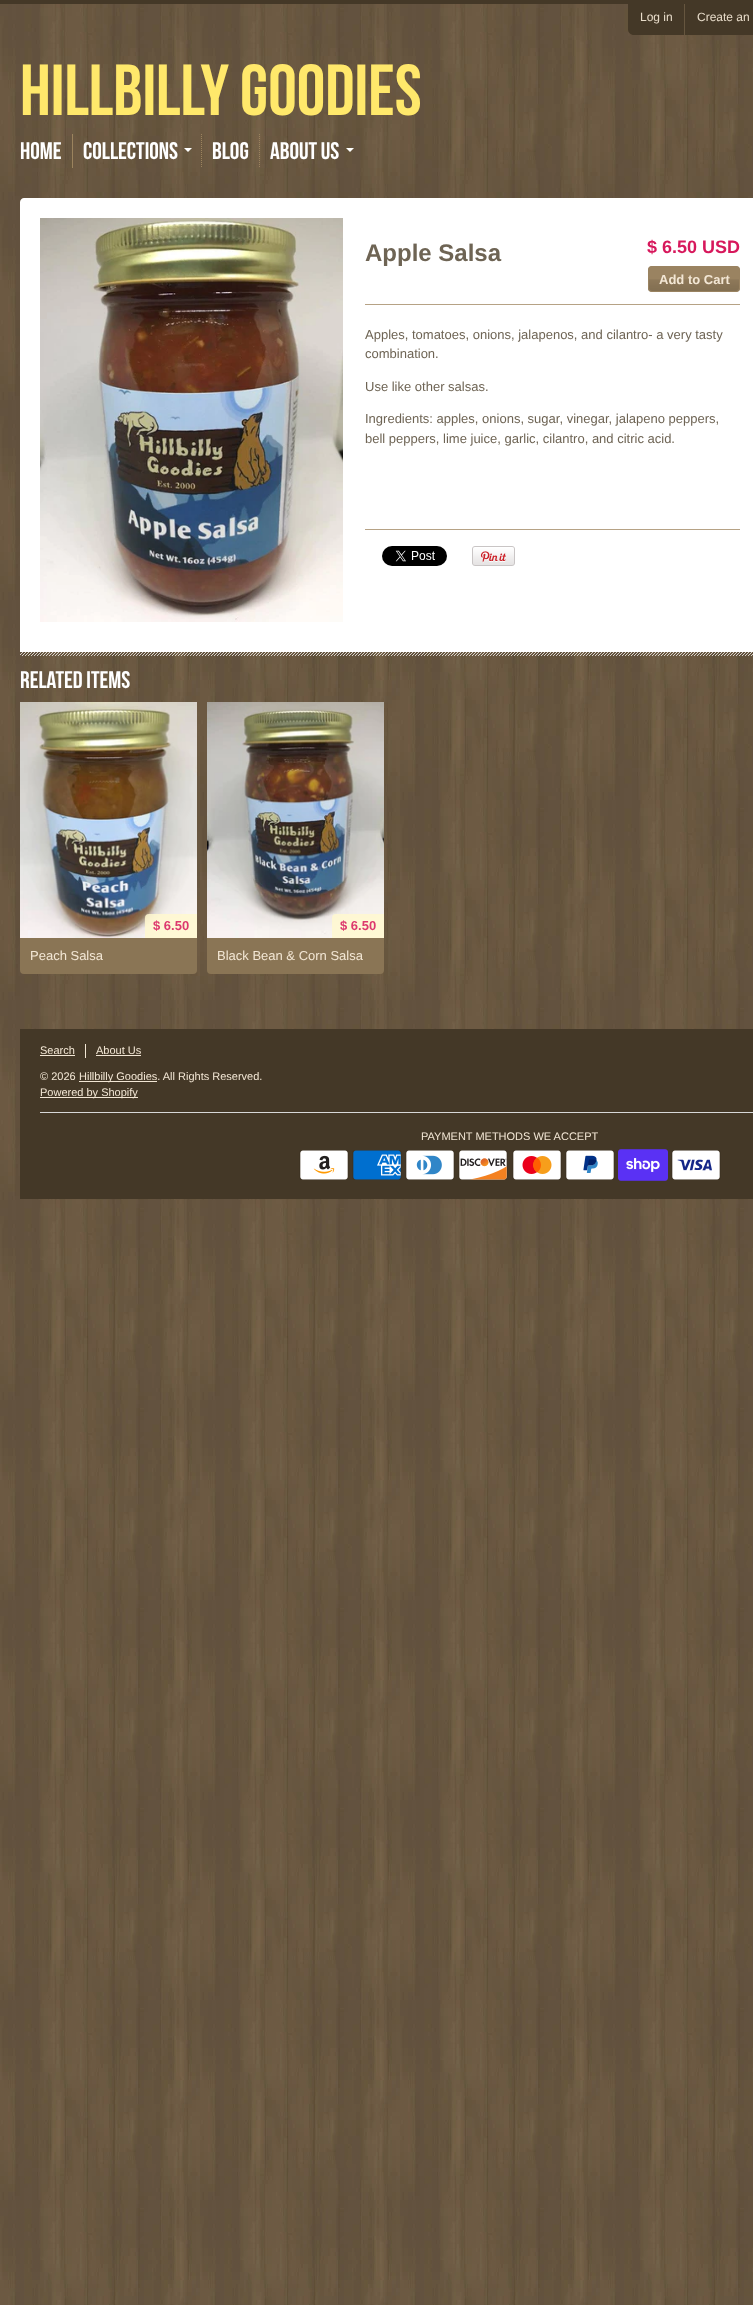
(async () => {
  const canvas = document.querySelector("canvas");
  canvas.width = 753;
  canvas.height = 2305;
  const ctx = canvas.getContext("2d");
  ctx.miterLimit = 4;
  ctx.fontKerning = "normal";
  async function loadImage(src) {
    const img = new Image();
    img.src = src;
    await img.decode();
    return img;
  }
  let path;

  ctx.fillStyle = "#ffffff";
  ctx.fillRect(0, 0, 753, 2305);
  ctx.drawImage(await loadImage("img/1.png"), 0, 4, 753, 2301);
  ctx.fillStyle = "#443827";
  ctx.fillRect(0, 0, 753, 4);
  path = new Path2D("M628 4H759V29C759 32.5 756.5 35 753 35H634C630.5 35 628 32.5 628 29Z");
  ctx.fill(path);
  ctx.fillStyle = "#66563f";
  ctx.fillRect(684, 4, 1, 31);
  ctx.fillStyle = "#9b835e";
  ctx.fillRect(72, 134, 1, 34);
  path = new Path2D("M201.5 134V168");
  ctx.strokeStyle = "#9b835e";
  ctx.setLineDash([1, 1]);
  ctx.stroke(path);
  ctx.fillStyle = "#ffffff";
  path = new Path2D("M184 148H192L188 152Z");
  ctx.fill(path);
  path = new Path2D("M259.5 134V168");
  ctx.stroke(path);
  path = new Path2D("M346 148H354L350 152Z");
  ctx.fill(path);
  path = new Path2D("M24 198H753C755 198 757 200 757 202V652H20V202C20 200 22 198 24 198Z");
  ctx.fill(path);
  ctx.drawImage(await loadImage("img/2.png"), 40, 218, 303, 404);
  ctx.fillStyle = "#b6a285";
  ctx.fillRect(365, 304, 375, 1);
  ctx.fillStyle = "#9a8361";
  ctx.beginPath();
  ctx.roundRect(648, 266, 92, 26, 4);
  ctx.fill();
  ctx.drawImage(await loadImage("img/3.png"), 648, 279, 92, 12);
  ctx.beginPath();
  ctx.roundRect(648.5, 266.5, 91, 25, 3.5);
  ctx.strokeStyle = "#9a8361";
  ctx.setLineDash([]);
  ctx.stroke();
  ctx.fillStyle = "#b6a285";
  ctx.fillRect(365, 529, 375, 1);
  ctx.drawImage(await loadImage("img/4.png"), 382, 546, 65, 20);
  ctx.drawImage(await loadImage("img/5.png"), 472, 546, 43, 20);
  ctx.drawImage(await loadImage("img/6.png"), 20, 652, 733, 4);
  ctx.drawImage(await loadImage("img/7.png"), 20, 702, 177, 236);
  ctx.fillStyle = "rgba(255, 248, 207, 0.85)";
  ctx.beginPath();
  ctx.roundRect(145, 914, 52, 24, [4, 0, 0, 0]);
  ctx.fill();
  ctx.fillStyle = "#8a7555";
  ctx.beginPath();
  ctx.roundRect(20, 938, 177, 36, [0, 0, 4, 4]);
  ctx.fill();
  ctx.drawImage(await loadImage("img/8.png"), 207, 702, 177, 236);
  ctx.fillStyle = "rgba(255, 248, 207, 0.85)";
  ctx.beginPath();
  ctx.roundRect(332, 914, 52, 24, [4, 0, 0, 0]);
  ctx.fill();
  ctx.fillStyle = "#8a7555";
  ctx.beginPath();
  ctx.roundRect(207, 938, 177, 36, [0, 0, 4, 4]);
  ctx.fill();
  for (const [x, y, w, h, color] of [
    [20, 1029, 733, 170, "#443827"],
    [40, 1055, 35, 1, "#f3e7d5"],
    [85, 1044, 1, 14, "#f3e7d5"],
    [96, 1055, 45, 1, "#f3e7d5"],
    [79, 1081, 78, 1, "#f3e7d5"],
    [40, 1097, 98, 1, "#f3e7d5"],
    [40, 1112, 713, 1, "#d7d7d7"],
  ]) {
    ctx.fillStyle = color;
    ctx.fillRect(x, y, w, h);
  }
  ctx.drawImage(await loadImage("img/9.png"), 299, 1150, 50, 30);
  ctx.drawImage(await loadImage("img/10.png"), 352, 1150, 50, 30);
  ctx.drawImage(await loadImage("img/11.png"), 405, 1150, 50, 30);
  ctx.drawImage(await loadImage("img/12.png"), 458, 1150, 50, 30);
  ctx.drawImage(await loadImage("img/13.png"), 512, 1150, 50, 30);
  ctx.drawImage(await loadImage("img/14.png"), 565, 1150, 50, 30);
  ctx.drawImage(await loadImage("img/15.png"), 618, 1149, 50, 32);
  ctx.drawImage(await loadImage("img/16.png"), 671, 1150, 50, 30);
  ctx.font = "12px Liberation Sans";
  ctx.fillStyle = "#e8dcca";
  ctx.fillText("Log in", 640, 21);
  ctx.fillText("Create an", 697, 21);
  ctx.font = "72px Bebas Neue";
  ctx.fillStyle = "#ffe86b";
  ctx.fillText("Hillbilly Goodies", 20, 115);
  ctx.font = "24px Bebas Neue";
  ctx.fillStyle = "#ffffff";
  for (const [text, x, y] of [
    ["Home", 20, 159],
    ["Collections", 83, 159],
    ["Blog", 212, 159],
    ["About Us", 270, 159],
  ]) {
    ctx.fillText(text, x, y);
  }
  ctx.font = "bold 24px Liberation Sans";
  ctx.fillStyle = "#6e6454";
  ctx.fillText("Apple Salsa", 365, 261);
  ctx.font = "bold 18px Liberation Sans";
  ctx.fillStyle = "#d7185c";
  ctx.fillText("$ 6.50 USD", 647, 253);
  ctx.font = "bold 13px Liberation Sans";
  ctx.fillStyle = "#f3e7d5";
  ctx.fillText("Add to Cart", 659, 284);
  ctx.font = "13px Liberation Sans";
  ctx.fillStyle = "#6e6454";
  for (const [text, x, y] of [
    ["Apples, tomatoes, onions, jalapenos, and cilantro- a very tasty", 365, 339],
    ["combination.", 365, 358],
    ["Use like other salsas.", 365, 391],
    ["Ingredients: apples, onions, sugar, vinegar, jalapeno peppers,", 365, 423],
    ["bell peppers, lime juice, garlic, cilantro, and citric acid.", 365, 443],
  ]) {
    ctx.fillText(text, x, y);
  }
  ctx.font = "24px Bebas Neue";
  ctx.fillStyle = "#ffffff";
  ctx.fillText("Related Items", 20, 688);
  ctx.font = "bold 13px Liberation Sans";
  ctx.fillStyle = "#dd396e";
  ctx.fillText("$ 6.50", 153, 930);
  ctx.font = "13px Liberation Sans";
  ctx.fillStyle = "#f3e7d5";
  ctx.fillText("Peach Salsa", 30, 960);
  ctx.font = "bold 13px Liberation Sans";
  ctx.fillStyle = "#dd396e";
  ctx.fillText("$ 6.50", 340, 930);
  ctx.font = "13px Liberation Sans";
  ctx.fillStyle = "#f3e7d5";
  ctx.fillText("Black Bean & Corn Salsa", 217, 960);
  ctx.font = "11px Liberation Sans";
  for (const [text, x, y] of [
    ["Search", 40, 1054],
    ["About Us", 96, 1054],
    ["© 2026", 40, 1080],
    ["Hillbilly Goodies. All Rights Reserved.", 79, 1080],
    ["Powered by Shopify", 40, 1096],
    ["PAYMENT METHODS WE ACCEPT", 421, 1140],
  ]) {
    ctx.fillText(text, x, y);
  }
})();
